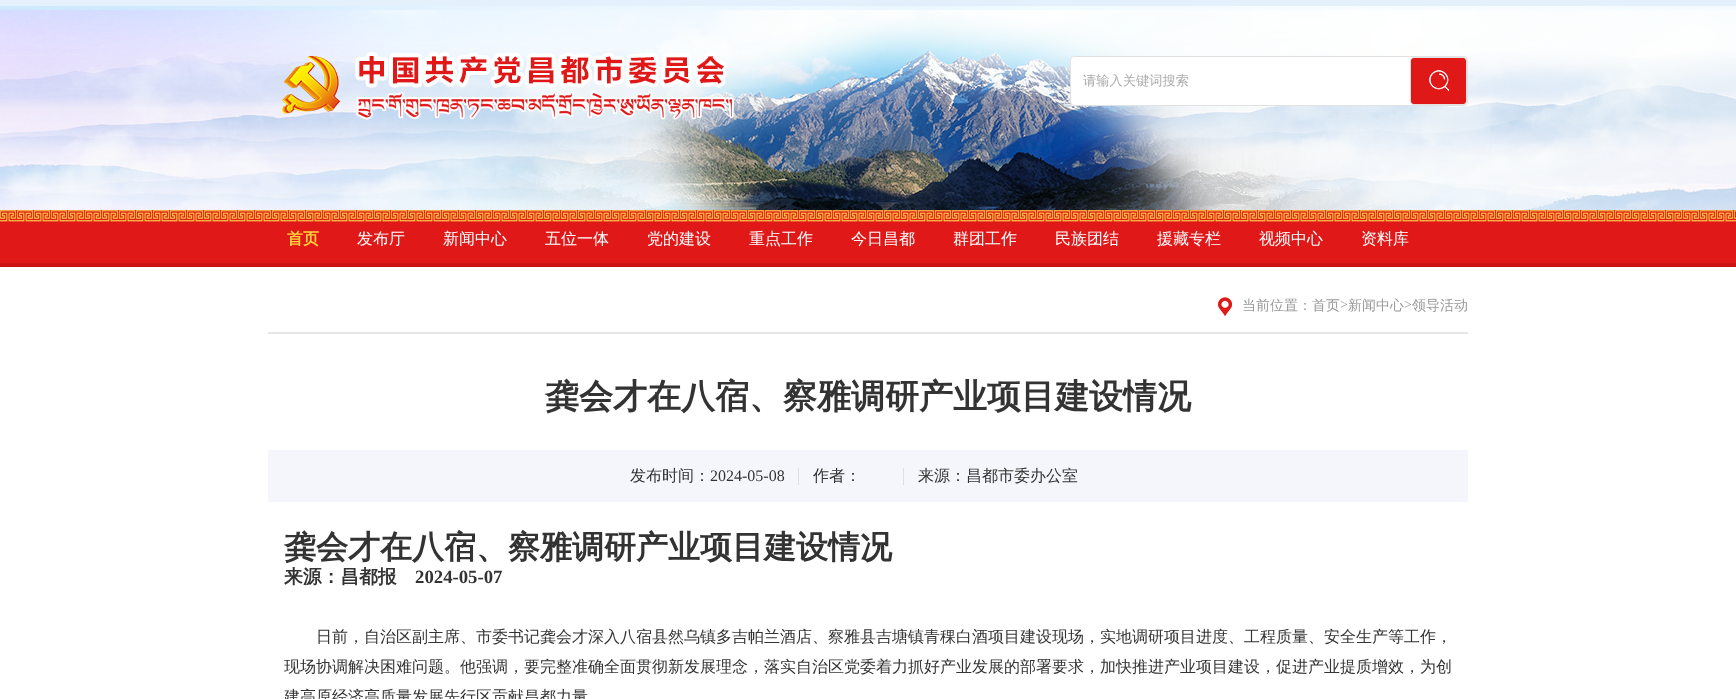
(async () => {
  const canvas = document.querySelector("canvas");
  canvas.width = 1736;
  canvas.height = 699;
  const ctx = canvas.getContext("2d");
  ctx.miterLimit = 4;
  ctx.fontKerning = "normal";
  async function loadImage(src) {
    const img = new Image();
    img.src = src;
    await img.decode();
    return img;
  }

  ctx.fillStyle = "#ffffff";
  ctx.fillRect(0, 0, 1736, 699);
  ctx.drawImage(await loadImage("img/1.png"), 0, 0, 1736, 210);
  ctx.drawImage(await loadImage("img/2.png"), 282, 52, 452, 68);
  ctx.beginPath();
  ctx.roundRect(1070.5, 56.5, 397, 49, 3.5);
  ctx.fill();
  ctx.strokeStyle = "#e2e2e2";
  ctx.stroke();
  ctx.drawImage(await loadImage("img/3.png"), 1410, 57, 57, 48);
  ctx.drawImage(await loadImage("img/4.png"), 0, 210, 1736, 57);
  ctx.fillStyle = "#e5e5e5";
  ctx.fillRect(268, 332, 1200, 2);
  ctx.drawImage(await loadImage("img/5.png"), 1218, 297, 14, 19);
  for (const [x, y, w, h, color] of [
    [268, 450, 1200, 52, "#f5f5fc"],
    [798, 468, 1, 17, "#dddde3"],
    [903, 468, 1, 17, "#dddde3"],
  ]) {
    ctx.fillStyle = color;
    ctx.fillRect(x, y, w, h);
  }
  ctx.font = "500 13.25px WenQuanYi Zen Hei";
  ctx.fillStyle = "#acacac";
  ctx.fillText("请输入关键词搜索", 1083, 85);
  ctx.font = "bold 16px WenQuanYi Zen Hei";
  ctx.fillStyle = "#ffd73b";
  ctx.fillText("首页", 287, 244);
  ctx.font = "500 16px WenQuanYi Zen Hei";
  ctx.fillStyle = "#ffffff";
  for (const [text, x, y] of [
    ["发布厅", 357, 244],
    ["新闻中心", 443, 244],
    ["五位一体", 545, 244],
    ["党的建设", 647, 244],
    ["重点工作", 749, 244],
    ["今日昌都", 851, 244],
    ["群团工作", 953, 244],
    ["民族团结", 1055, 244],
    ["援藏专栏", 1157, 244],
    ["视频中心", 1259, 244],
    ["资料库", 1361, 244],
  ]) {
    ctx.fillText(text, x, y);
  }
  ctx.font = "500 14px WenQuanYi Zen Hei";
  ctx.fillStyle = "#999999";
  ctx.fillText("当前位置：首页", 1242, 310);
  ctx.font = "14px Liberation Serif";
  ctx.fillText(">", 1340, 309);
  ctx.font = "500 14px WenQuanYi Zen Hei";
  ctx.fillText("新闻中心", 1348, 310);
  ctx.font = "14px Liberation Serif";
  ctx.fillText(">", 1404, 309);
  ctx.font = "500 14px WenQuanYi Zen Hei";
  ctx.fillText("领导活动", 1412, 310);
  ctx.font = "bold 34px WenQuanYi Zen Hei";
  ctx.fillStyle = "#333333";
  ctx.fillText("龚会才在八宿、察雅调研产业项目建设情况", 545, 408);
  ctx.font = "500 16px WenQuanYi Zen Hei";
  ctx.fillText("发布时间：", 630, 481);
  ctx.font = "16px Liberation Serif";
  ctx.fillText("2024-05-08", 710, 481);
  ctx.font = "500 16px WenQuanYi Zen Hei";
  ctx.fillText("作者：", 813, 481);
  ctx.fillText("来源：昌都市委办公室", 918, 481);
  ctx.font = "bold 32px WenQuanYi Zen Hei";
  ctx.fillText("龚会才在八宿、察雅调研产业项目建设情况", 284, 558);
  ctx.font = "bold 18.75px WenQuanYi Zen Hei";
  ctx.fillText("来源：昌都报", 284, 583);
  ctx.font = "bold 18.75px Liberation Serif";
  ctx.fillText("2024-05-07", 415, 583);
  ctx.font = "500 16px WenQuanYi Zen Hei";
  for (const [text, x, y] of [
    ["日前，自治区副主席、市委书记龚会才深入八宿县然乌镇多吉帕兰酒店、察雅县吉塘镇青稞白酒项目建设现场，实地调研项目进度、工程质量、安全生产等工作，", 316, 642],
    ["现场协调解决困难问题。他强调，要完整准确全面贯彻新发展理念，落实自治区党委着力抓好产业发展的部署要求，加快推进产业项目建设，促进产业提质增效，为创", 284, 672],
    ["建高原经济高质量发展先行区贡献昌都力量", 284, 702],
  ]) {
    ctx.fillText(text, x, y);
  }
})();
